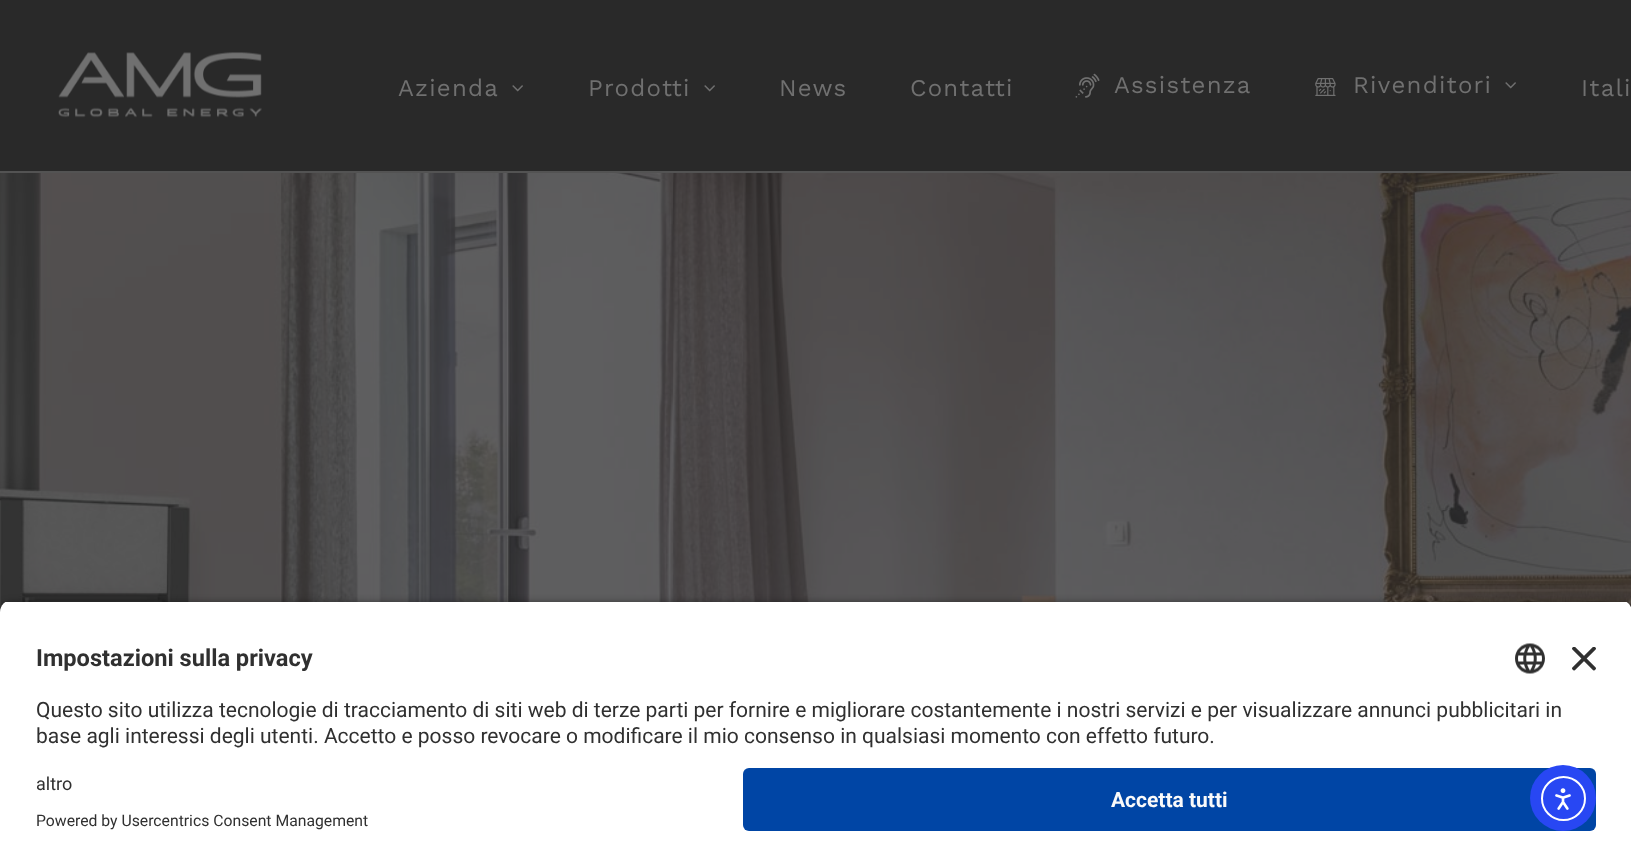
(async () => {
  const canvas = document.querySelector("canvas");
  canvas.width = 1631;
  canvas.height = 867;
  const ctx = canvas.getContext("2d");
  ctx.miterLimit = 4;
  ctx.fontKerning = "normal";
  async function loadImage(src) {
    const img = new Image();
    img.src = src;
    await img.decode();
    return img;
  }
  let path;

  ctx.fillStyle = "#ffffff";
  ctx.fillRect(0, 0, 1631, 867);
  ctx.fillStyle = "#292929";
  ctx.fillRect(0, 0, 1631, 171);
  ctx.fillStyle = "#535353";
  ctx.fillRect(0, 171, 1631, 2);
  ctx.drawImage(await loadImage("img/1.png"), 58, 52, 204, 66);
  ctx.drawImage(await loadImage("img/2.png"), 512, 85, 11, 7);
  ctx.drawImage(await loadImage("img/2.png"), 704, 85, 11, 7);
  ctx.drawImage(await loadImage("img/3.png"), 1075, 73, 25, 25);
  ctx.drawImage(await loadImage("img/4.png"), 1315, 78, 21, 18);
  ctx.drawImage(await loadImage("img/2.png"), 1505, 82, 11, 7);
  ctx.drawImage(await loadImage("img/5.png"), 0, 173, 1631, 439);
  ctx.fillStyle = "rgba(0, 0, 0, 0.8)";
  ctx.filter = "blur(5px)";
  ctx.beginPath();
  ctx.roundRect(0, 605, 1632, 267, 12);
  ctx.fill();
  ctx.filter = "none";
  ctx.save();
  path = new Path2D("M12 600H1620C1626.5 600 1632 605.5 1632 612V756H0V612C0 605.5 5.5 600 12 600Z");
  ctx.clip(path);
  ctx.fillStyle = "#ffffff";
  ctx.fillRect(0, 602, 1631, 154);
  ctx.restore();
  ctx.drawImage(await loadImage("img/6.png"), 1515, 643, 30, 31);
  ctx.drawImage(await loadImage("img/7.png"), 1572, 647, 24, 24);
  ctx.fillStyle = "#ffffff";
  ctx.fillRect(0, 756, 1631, 111);
  ctx.fillStyle = "#0045a5";
  ctx.beginPath();
  ctx.roundRect(743, 768, 853, 63, 6);
  ctx.fill();
  ctx.fillStyle = "#2847f3";
  ctx.beginPath();
  ctx.arc(1563, 798, 33, 0, Math.PI * 2);
  ctx.fill();
  ctx.beginPath();
  ctx.arc(1563.5, 798.5, 21.5, 0, Math.PI * 2);
  ctx.strokeStyle = "#ffffff";
  ctx.lineWidth = 2;
  ctx.stroke();
  ctx.drawImage(await loadImage("img/8.png"), 1555, 788, 16, 22);
  ctx.letterSpacing = "1.25px";
  ctx.font = "24px Work Sans";
  ctx.fillStyle = "#707070";
  for (const [text, x, y] of [
    ["Azienda", 398, 96],
    ["Prodotti", 588, 96],
    ["News", 779, 96],
    ["Contatti", 910, 96],
    ["Assistenza", 1114, 93],
    ["Rivenditori", 1353, 93],
    ["Itali", 1581, 96],
  ]) {
    ctx.fillText(text, x, y);
  }
  ctx.letterSpacing = "0px";
  ctx.font = "bold 23.6px Roboto";
  ctx.fillStyle = "#303030";
  ctx.fillText("Impostazioni sulla privacy", 36, 666);
  ctx.font = "21px Roboto";
  ctx.fillText("Questo sito utilizza tecnologie di tracciamento di siti web di terze parti per fornire e migliorare costantemente i nostri servizi e per visualizzare annunci pubblicitari in", 36, 717);
  ctx.fillText("base agli interessi degli utenti. Accetto e posso revocare o modificare il mio consenso in qualsiasi momento con effetto futuro.", 36, 743);
  ctx.font = "18px Roboto";
  ctx.fillText("altro", 36, 790);
  ctx.font = "15.75px Roboto";
  ctx.fillText("Powered by Usercentrics Consent Management", 36, 826);
  ctx.font = "bold 21px Roboto";
  ctx.fillStyle = "#fafafa";
  ctx.fillText("Accetta tutti", 1111, 807);
})();
